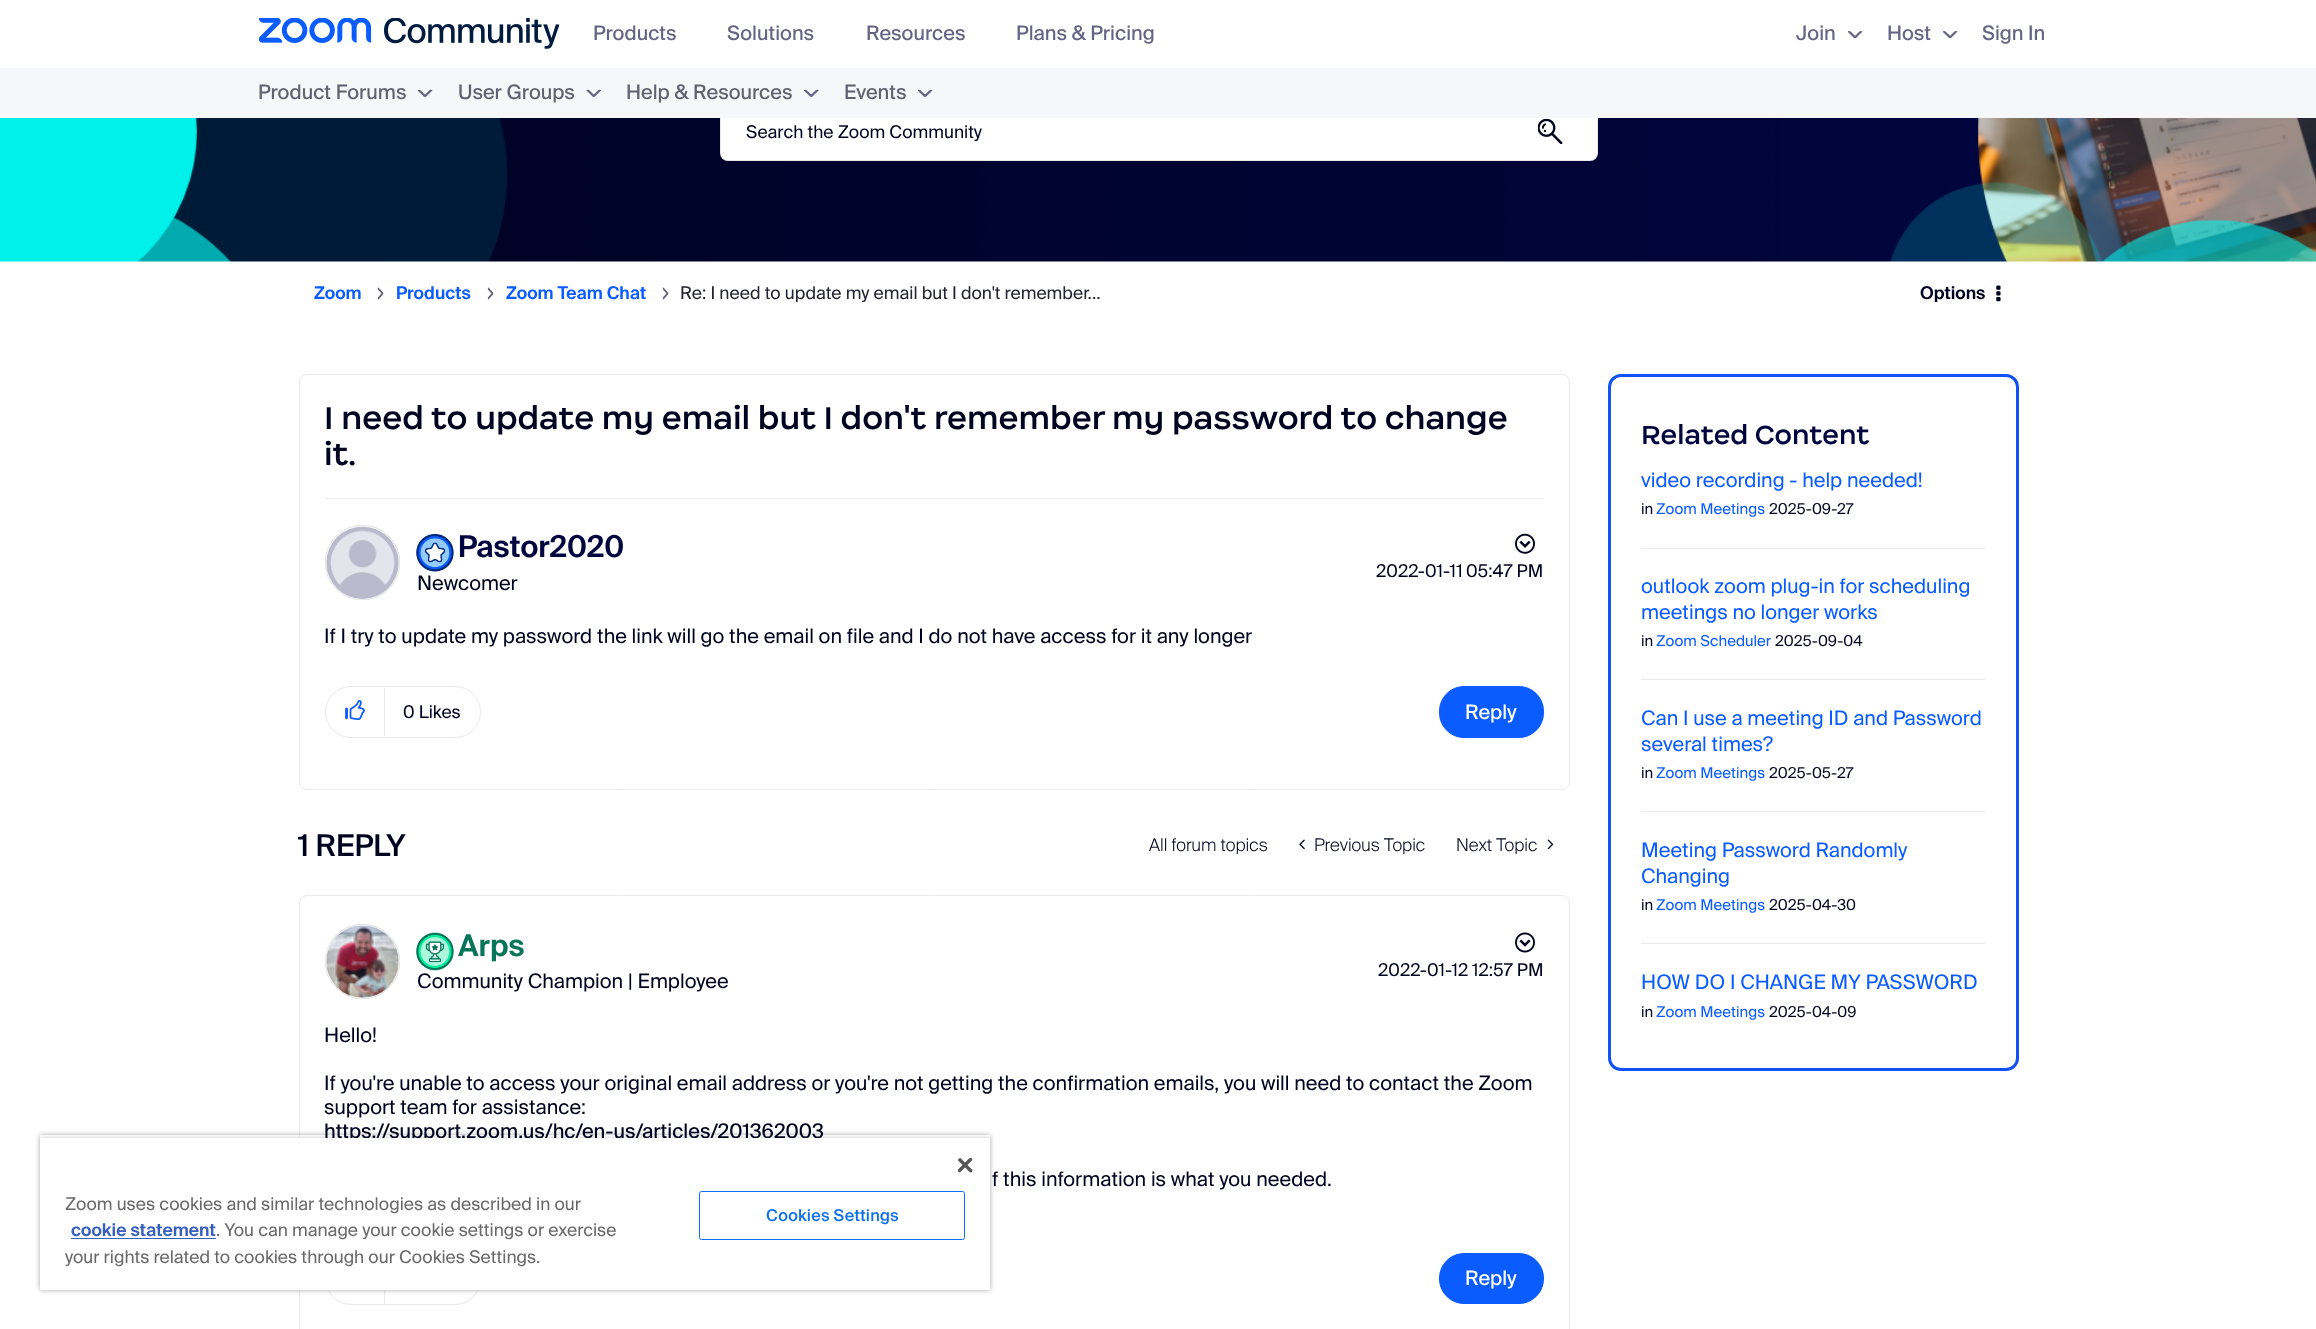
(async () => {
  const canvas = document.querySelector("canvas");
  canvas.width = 2316;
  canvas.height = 1329;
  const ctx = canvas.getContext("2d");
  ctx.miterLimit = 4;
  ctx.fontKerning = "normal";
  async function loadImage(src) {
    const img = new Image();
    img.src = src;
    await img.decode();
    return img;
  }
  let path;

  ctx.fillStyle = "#ffffff";
  ctx.fillRect(0, 0, 2316, 1329);
  ctx.drawImage(await loadImage("img/1.png"), 259, 18, 300, 31);
  ctx.drawImage(await loadImage("img/2.png"), 1848, 31, 15, 7);
  ctx.drawImage(await loadImage("img/2.png"), 1943, 31, 15, 7);
  ctx.drawImage(await loadImage("img/6.png"), 0, 118, 2316, 144);
  ctx.beginPath();
  ctx.roundRect(720, 101, 878, 60, 8);
  ctx.fill();
  ctx.beginPath();
  ctx.roundRect(720.5, 101.5, 877, 59, 7.5);
  ctx.strokeStyle = "rgba(35, 35, 51, 0.1)";
  ctx.stroke();
  ctx.fillStyle = "#f6f7f9";
  ctx.fillRect(0, 68, 2316, 50);
  ctx.drawImage(await loadImage("img/3.png"), 418, 89, 15, 8);
  ctx.drawImage(await loadImage("img/4.png"), 586, 89, 15, 8);
  ctx.drawImage(await loadImage("img/5.png"), 804, 89, 15, 8);
  ctx.drawImage(await loadImage("img/3.png"), 918, 89, 15, 8);
  ctx.drawImage(await loadImage("img/7.png"), 1538, 119, 25, 25);
  ctx.drawImage(await loadImage("img/8.png"), 377, 287, 7, 13);
  ctx.drawImage(await loadImage("img/8.png"), 487, 287, 7, 13);
  ctx.drawImage(await loadImage("img/8.png"), 662, 287, 7, 13);
  ctx.drawImage(await loadImage("img/9.png"), 1996, 285, 5, 17);
  ctx.beginPath();
  ctx.roundRect(299.5, 374.5, 1270, 415, 7.5);
  ctx.strokeStyle = "#e9e9eb";
  ctx.stroke();
  ctx.fillStyle = "#e9e9eb";
  ctx.fillRect(325, 498, 1219, 1);
  ctx.save();
  path = new Path2D("M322 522H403V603H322ZM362.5 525C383 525 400 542 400 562.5C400 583 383 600 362.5 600C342 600 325 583 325 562.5C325 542 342 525 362.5 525Z");
  ctx.clip(path, "evenodd");
  ctx.fillStyle = "#c4c4c4";
  ctx.filter = "blur(0.5px)";
  ctx.beginPath();
  ctx.roundRect(325, 525, 75, 75, 37.5);
  ctx.fill();
  ctx.filter = "none";
  ctx.restore();
  ctx.beginPath();
  ctx.arc(362.5, 562.5, 37, 0, Math.PI * 2);
  ctx.strokeStyle = "rgba(35, 35, 51, 0.1)";
  ctx.stroke();
  ctx.drawImage(await loadImage("img/10.png"), 326, 526, 73, 73);
  ctx.drawImage(await loadImage("img/11.png"), 416, 534, 38, 38);
  ctx.drawImage(await loadImage("img/12.png"), 1515, 533, 20, 21);
  ctx.beginPath();
  ctx.roundRect(325.5, 686.5, 155, 51, 25.5);
  ctx.strokeStyle = "#e9e9eb";
  ctx.stroke();
  ctx.fillRect(384, 688, 1, 48);
  ctx.drawImage(await loadImage("img/13.png"), 345, 700, 20, 20);
  ctx.fillStyle = "#0b5cff";
  ctx.beginPath();
  ctx.roundRect(1439.5, 686.5, 104, 51, 24.5);
  ctx.fill();
  ctx.strokeStyle = "#0b5cff";
  ctx.stroke();
  ctx.drawImage(await loadImage("img/14.png"), 1299, 839, 6, 11);
  ctx.drawImage(await loadImage("img/15.png"), 1547, 839, 7, 11);
  ctx.beginPath();
  ctx.roundRect(299.5, 895.5, 1270, 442, 7.5);
  ctx.strokeStyle = "#e9e9eb";
  ctx.stroke();
  ctx.save();
  path = new Path2D("M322 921H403V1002H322ZM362.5 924C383 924 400 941 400 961.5C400 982 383 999 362.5 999C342 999 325 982 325 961.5C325 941 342 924 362.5 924Z");
  ctx.clip(path, "evenodd");
  ctx.fillStyle = "#c4c4c4";
  ctx.filter = "blur(0.5px)";
  ctx.beginPath();
  ctx.roundRect(325, 924, 75, 75, 37.5);
  ctx.fill();
  ctx.filter = "none";
  ctx.restore();
  ctx.beginPath();
  ctx.arc(362.5, 961.5, 37, 0, Math.PI * 2);
  ctx.strokeStyle = "rgba(35, 35, 51, 0.1)";
  ctx.stroke();
  ctx.drawImage(await loadImage("img/16.png"), 326, 925, 73, 73);
  ctx.drawImage(await loadImage("img/17.png"), 416, 932, 38, 39);
  ctx.drawImage(await loadImage("img/18.png"), 1515, 932, 20, 21);
  ctx.beginPath();
  ctx.roundRect(325.5, 1253.5, 155, 51, 25.5);
  ctx.strokeStyle = "#e9e9eb";
  ctx.stroke();
  ctx.fillStyle = "#e9e9eb";
  ctx.fillRect(384, 1290, 1, 14);
  ctx.fillStyle = "#0b5cff";
  ctx.beginPath();
  ctx.roundRect(1439.5, 1253.5, 104, 50, 24.5);
  ctx.fill();
  ctx.strokeStyle = "#0b5cff";
  ctx.stroke();
  ctx.beginPath();
  ctx.roundRect(1609.5, 375.5, 408, 694, 11.5);
  ctx.strokeStyle = "#1152f6";
  ctx.lineWidth = 3;
  ctx.stroke();
  for (const [x, y, w, h, color] of [
    [1641, 548, 344, 1, "#e9e9eb"],
    [1641, 679, 344, 1, "#e9e9eb"],
    [1641, 811, 344, 1, "#e9e9eb"],
    [1641, 943, 344, 1, "#e9e9eb"],
  ]) {
    ctx.fillStyle = color;
    ctx.fillRect(x, y, w, h);
  }
  ctx.save();
  path = new Path2D("M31 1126H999V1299H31ZM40 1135H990V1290H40Z");
  ctx.clip(path, "evenodd");
  ctx.fillStyle = "rgba(0, 0, 0, 0.35)";
  ctx.filter = "blur(2.5px)";
  ctx.beginPath();
  ctx.rect(40, 1135, 950, 155);
  ctx.fill();
  ctx.filter = "none";
  ctx.restore();
  ctx.save();
  ctx.beginPath();
  ctx.rect(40, 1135, 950, 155);
  ctx.clip();
  ctx.fillStyle = "rgba(0, 0, 0, 0.2)";
  ctx.filter = "blur(2.5px)";
  ctx.beginPath();
  ctx.rect(40, 1138, 950, 152);
  ctx.fill();
  ctx.filter = "none";
  ctx.restore();
  ctx.font = "20px 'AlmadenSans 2'";
  ctx.fillStyle = "#666484";
  for (const [text, x, y] of [
    ["Products", 593, 40],
    ["Solutions", 727, 40],
    ["Resources", 866, 40],
    ["Plans & Pricing", 1016, 40],
    ["Join", 1796, 40],
    ["Host", 1887, 40],
    ["Sign In", 1982, 40],
  ]) {
    ctx.fillText(text, x, y);
  }
  ctx.fillStyle = "#616171";
  for (const [text, x, y] of [
    ["Product Forums", 258, 99],
    ["User Groups", 458, 99],
    ["Help & Resources", 626, 99],
    ["Events", 844, 99],
  ]) {
    ctx.fillText(text, x, y);
  }
  ctx.font = "17.5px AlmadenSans";
  ctx.fillStyle = "#00031f";
  ctx.fillText("Search the Zoom Community", 746, 138);
  ctx.font = "600 17.5px AlmadenSans";
  ctx.fillStyle = "#0b5cff";
  for (const [text, x, y] of [
    ["Zoom", 314, 299],
    ["Products", 396, 299],
    ["Zoom Team Chat", 506, 299],
  ]) {
    ctx.fillText(text, x, y);
  }
  ctx.font = "17.5px AlmadenSans";
  ctx.fillStyle = "#232333";
  ctx.fillText("Re: I need to update my email but I don't remember...", 680, 299);
  ctx.font = "600 17.5px AlmadenSans";
  ctx.fillStyle = "#00031f";
  ctx.fillText("Options", 1920, 299);
  ctx.font = "600 30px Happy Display";
  ctx.fillText("I need to update my email but I don't remember my password to change", 324, 429);
  ctx.fillText("it.", 324, 465);
  ctx.font = "600 30px AlmadenSans";
  ctx.fillStyle = "#00053d";
  ctx.fillText("Pastor2020", 458, 557);
  ctx.font = "20px AlmadenSans";
  ctx.fillStyle = "#00031f";
  ctx.fillText("Newcomer", 417, 590);
  ctx.font = "17.5px AlmadenSans";
  ctx.fillText("2022-01-11", 1376, 577);
  ctx.fillText("05:47 PM", 1466, 577);
  ctx.font = "20px AlmadenSans";
  ctx.fillText("If I try to update my password the link will go the email on file and I do not have access for it any longer", 324, 643);
  ctx.font = "17.5px AlmadenSans";
  ctx.fillText("0 Likes", 403, 718);
  ctx.font = "20px 'AlmadenSans 2'";
  ctx.fillStyle = "#ffffff";
  ctx.fillText("Reply", 1465, 719);
  ctx.font = "500 30px AlmadenSans";
  ctx.fillStyle = "#00031f";
  ctx.fillText("1 REPLY", 298, 856);
  ctx.font = "300 17.5px AlmadenSans";
  for (const [text, x, y] of [
    ["All forum topics", 1149, 851],
    ["Previous Topic", 1314, 851],
    ["Next Topic", 1456, 851],
  ]) {
    ctx.fillText(text, x, y);
  }
  ctx.font = "600 30px AlmadenSans";
  ctx.fillStyle = "#06755a";
  ctx.fillText("Arps", 458, 956);
  ctx.font = "20px AlmadenSans";
  ctx.fillStyle = "#00031f";
  ctx.fillText("Community Champion | Employee", 417, 988);
  ctx.font = "17.5px AlmadenSans";
  ctx.fillText("2022-01-12", 1378, 976);
  ctx.fillText("12:57 PM", 1472, 976);
  ctx.font = "20px AlmadenSans";
  for (const [text, x, y] of [
    ["Hello!", 324, 1042],
    ["If you're unable to access your original email address or you're not getting the confirmation emails, you will need to contact the Zoom", 324, 1090],
    ["support team for assistance:", 324, 1114],
  ]) {
    ctx.fillText(text, x, y);
  }
  ctx.font = "20px 'AlmadenSans 2'";
  ctx.fillText("https://support.zoom.us/hc/en-us/articles/201362003", 324, 1138);
  ctx.font = "20px AlmadenSans";
  ctx.fillText("f this information is what you needed.", 992, 1186);
  ctx.font = "20px 'AlmadenSans 2'";
  ctx.fillStyle = "#ffffff";
  ctx.fillText("Reply", 1465, 1285);
  ctx.font = "600 25px Happy Display";
  ctx.fillStyle = "#00053d";
  ctx.fillText("Related Content", 1641, 444);
  ctx.font = "20px AlmadenSans";
  ctx.fillStyle = "#0b5cff";
  ctx.fillText("video recording - help needed!", 1641, 487);
  ctx.font = "15px AlmadenSans";
  ctx.fillStyle = "#00031f";
  ctx.fillText("in", 1641, 514);
  ctx.fillStyle = "#0b5cff";
  ctx.fillText("Zoom Meetings", 1656, 514);
  ctx.fillStyle = "#00031f";
  ctx.fillText("2025-09-27", 1769, 514);
  ctx.font = "20px AlmadenSans";
  ctx.fillStyle = "#0b5cff";
  ctx.fillText("outlook zoom plug-in for scheduling", 1641, 593);
  ctx.fillText("meetings no longer works", 1641, 619);
  ctx.font = "15px AlmadenSans";
  ctx.fillStyle = "#00031f";
  ctx.fillText("in", 1641, 646);
  ctx.fillStyle = "#0b5cff";
  ctx.fillText("Zoom Scheduler", 1656, 646);
  ctx.fillStyle = "#00031f";
  ctx.fillText("2025-09-04", 1775, 646);
  ctx.font = "20px AlmadenSans";
  ctx.fillStyle = "#0b5cff";
  ctx.fillText("Can I use a meeting ID and Password", 1641, 725);
  ctx.fillText("several times?", 1641, 751);
  ctx.font = "15px AlmadenSans";
  ctx.fillStyle = "#00031f";
  ctx.fillText("in", 1641, 778);
  ctx.fillStyle = "#0b5cff";
  ctx.fillText("Zoom Meetings", 1656, 778);
  ctx.fillStyle = "#00031f";
  ctx.fillText("2025-05-27", 1769, 778);
  ctx.font = "20px AlmadenSans";
  ctx.fillStyle = "#0b5cff";
  ctx.fillText("Meeting Password Randomly", 1641, 857);
  ctx.fillText("Changing", 1641, 883);
  ctx.font = "15px AlmadenSans";
  ctx.fillStyle = "#00031f";
  ctx.fillText("in", 1641, 910);
  ctx.fillStyle = "#0b5cff";
  ctx.fillText("Zoom Meetings", 1656, 910);
  ctx.fillStyle = "#00031f";
  ctx.fillText("2025-04-30", 1769, 910);
  ctx.font = "20px AlmadenSans";
  ctx.fillStyle = "#0b5cff";
  ctx.fillText("HOW DO I CHANGE MY PASSWORD", 1641, 989);
  ctx.font = "15px AlmadenSans";
  ctx.fillStyle = "#00031f";
  ctx.fillText("in", 1641, 1017);
  ctx.fillStyle = "#0b5cff";
  ctx.fillText("Zoom Meetings", 1656, 1017);
  ctx.fillStyle = "#00031f";
  ctx.fillText("2025-04-09", 1769, 1017);
  ctx.fillStyle = "#ffffff";
  ctx.fillRect(40, 1138, 950, 152);
  ctx.drawImage(await loadImage("img/19.png"), 958, 1158, 15, 15);
  ctx.font = "17.5px AlmadenSans";
  ctx.fillStyle = "#696969";
  ctx.fillText("Zoom uses cookies and similar technologies as described in our", 65, 1210);
  ctx.font = "600 17.5px AlmadenSans";
  ctx.fillStyle = "#3860be";
  ctx.fillText("cookie statement", 71, 1236);
  ctx.fillRect(71, 1238, 145, 1);
  ctx.font = "17.5px AlmadenSans";
  ctx.fillStyle = "#696969";
  ctx.fillText(". You can manage your cookie settings or exercise", 216, 1236);
  ctx.fillText("your rights related to cookies through our Cookies Settings.", 65, 1263);
  ctx.beginPath();
  ctx.roundRect(699.5, 1191.5, 265, 48, 2);
  ctx.strokeStyle = "#0e71eb";
  ctx.lineWidth = 1;
  ctx.stroke();
  ctx.letterSpacing = "0.2px";
  ctx.font = "500 16.25px AlmadenSans";
  ctx.fillStyle = "#0e71eb";
  ctx.fillText("Cookies Settings", 766, 1221);
})();
